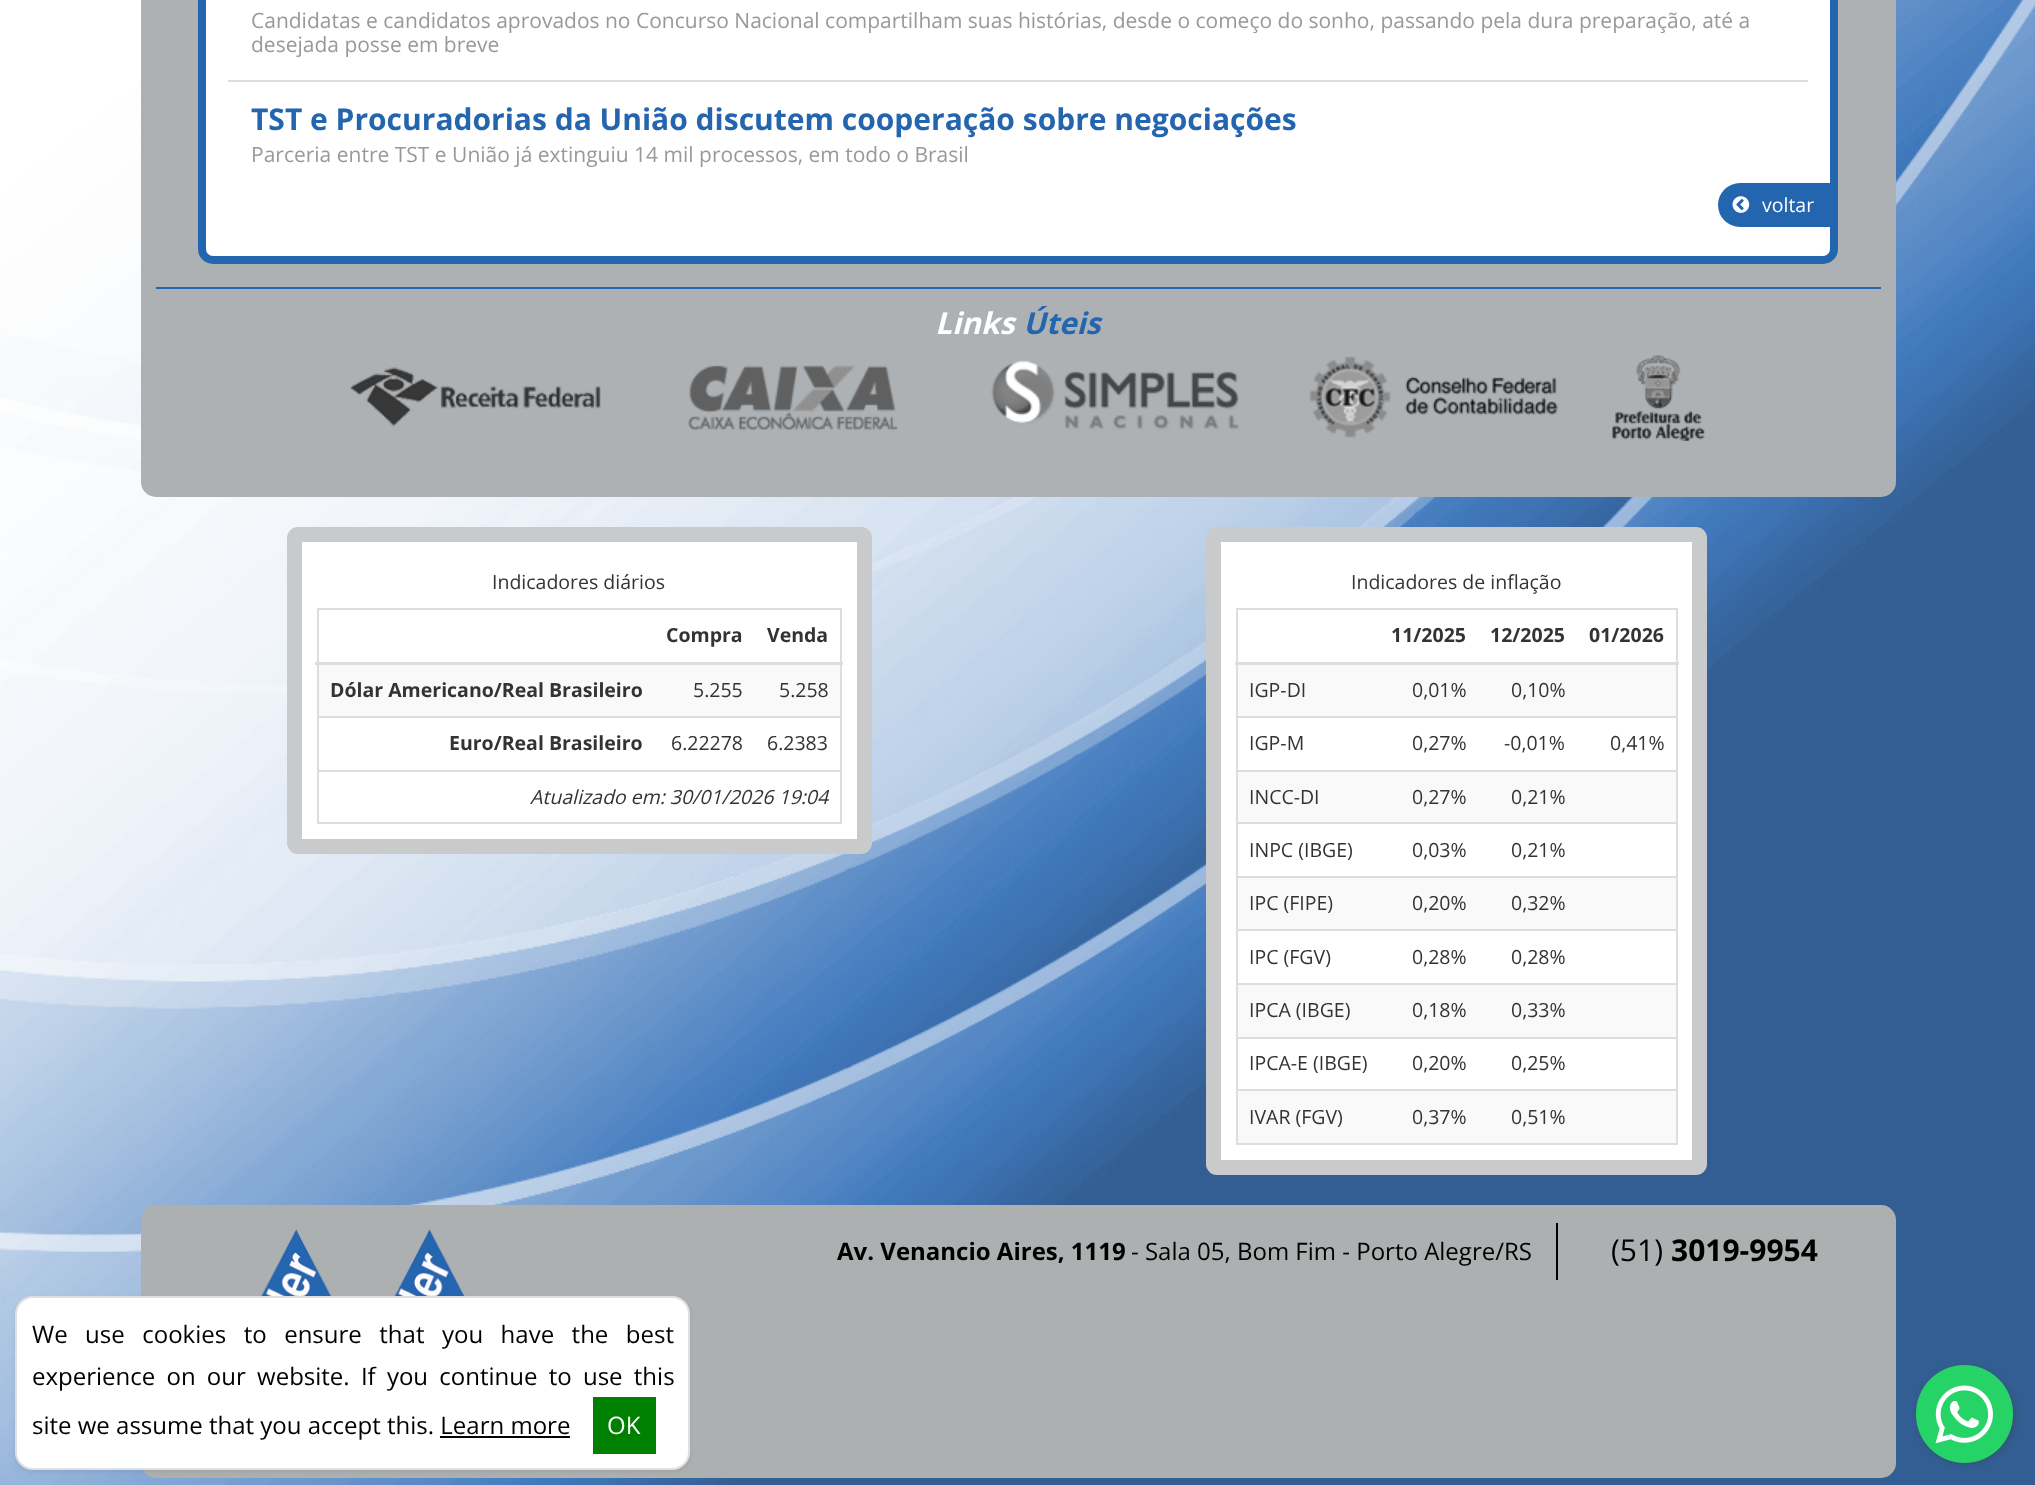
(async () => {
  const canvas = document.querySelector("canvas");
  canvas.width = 2035;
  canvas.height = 1485;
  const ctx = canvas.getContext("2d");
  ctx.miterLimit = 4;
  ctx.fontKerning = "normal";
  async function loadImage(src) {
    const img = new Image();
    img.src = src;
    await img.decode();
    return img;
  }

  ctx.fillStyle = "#ffffff";
  ctx.fillRect(0, 0, 2035, 1485);
  ctx.drawImage(await loadImage("img/1.png"), 0, 0, 2035, 1485);
  ctx.fillStyle = "#adb1b4";
  ctx.beginPath();
  ctx.roundRect(141, -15, 1755, 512, 15);
  ctx.fill();
  ctx.fillStyle = "#ffffff";
  ctx.beginPath();
  ctx.roundRect(202, -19, 1632, 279, 11);
  ctx.fill();
  ctx.strokeStyle = "#2465af";
  ctx.lineWidth = 8;
  ctx.stroke();
  ctx.fillStyle = "#dddddd";
  ctx.fillRect(228, 80, 1580, 2);
  ctx.fillStyle = "#2465af";
  ctx.beginPath();
  ctx.roundRect(1718, 183, 112, 44, [22, 0, 0, 22]);
  ctx.fill();
  ctx.drawImage(await loadImage("img/2.png"), 1732, 196, 18, 17);
  ctx.fillRect(156, 287, 1725, 2);
  ctx.drawImage(await loadImage("img/3.png"), 350, 367, 251, 60);
  ctx.drawImage(await loadImage("img/4.png"), 688, 365, 210, 66);
  ctx.drawImage(await loadImage("img/5.png"), 991, 360, 248, 70);
  ctx.drawImage(await loadImage("img/6.png"), 1309, 356, 250, 82);
  ctx.drawImage(await loadImage("img/7.png"), 1612, 355, 93, 86);
  ctx.fillStyle = "#ffffff";
  ctx.beginPath();
  ctx.roundRect(294.5, 534.5, 570, 312, 3.5);
  ctx.fill();
  ctx.strokeStyle = "#c8cacc";
  ctx.lineWidth = 15;
  ctx.stroke();
  for (const [x, y, w, h, color] of [
    [317, 608, 525, 2, "#dddddd"],
    [840, 608, 2, 216, "#dddddd"],
    [317, 822, 525, 2, "#dddddd"],
    [317, 608, 2, 216, "#dddddd"],
    [315, 662, 528, 3, "#dddddd"],
    [319, 665, 521, 51, "#f9f9f9"],
    [317, 716, 525, 2, "#dddddd"],
    [317, 770, 525, 2, "#dddddd"],
  ]) {
    ctx.fillStyle = color;
    ctx.fillRect(x, y, w, h);
  }
  ctx.fillStyle = "#ffffff";
  ctx.beginPath();
  ctx.roundRect(1213.5, 534.5, 486, 633, 3.5);
  ctx.fill();
  ctx.stroke();
  for (const [x, y, w, h, color] of [
    [1236, 608, 441, 2, "#dddddd"],
    [1676, 608, 2, 537, "#dddddd"],
    [1236, 1143, 441, 2, "#dddddd"],
    [1236, 608, 2, 537, "#dddddd"],
    [1235, 662, 444, 3, "#dddddd"],
    [1238, 665, 438, 51, "#f9f9f9"],
    [1236, 716, 441, 2, "#dddddd"],
    [1238, 772, 438, 50, "#f9f9f9"],
    [1236, 770, 441, 2, "#dddddd"],
    [1236, 822, 441, 2, "#dddddd"],
    [1238, 878, 438, 51, "#f9f9f9"],
    [1236, 876, 441, 2, "#dddddd"],
    [1236, 929, 441, 2, "#dddddd"],
    [1238, 985, 438, 52, "#f9f9f9"],
    [1236, 983, 441, 2, "#dddddd"],
    [1236, 1037, 441, 2, "#dddddd"],
    [1238, 1091, 438, 52, "#f9f9f9"],
    [1236, 1089, 441, 2, "#dddddd"],
  ]) {
    ctx.fillStyle = color;
    ctx.fillRect(x, y, w, h);
  }
  ctx.fillStyle = "#adb0b1";
  ctx.beginPath();
  ctx.roundRect(141, 1205, 1755, 273, 15);
  ctx.fill();
  ctx.drawImage(await loadImage("img/8.png"), 260, 1229, 205, 67);
  ctx.fillStyle = "#000000";
  ctx.fillRect(1556, 1223, 2, 57);
  ctx.fillStyle = "rgba(0, 0, 0, 0.07)";
  ctx.filter = "blur(2px)";
  ctx.beginPath();
  ctx.roundRect(15, 1298, 675, 174, 18);
  ctx.fill();
  ctx.filter = "none";
  ctx.fillStyle = "#ffffff";
  ctx.beginPath();
  ctx.roundRect(15, 1296, 675, 174, 18);
  ctx.fill();
  ctx.beginPath();
  ctx.roundRect(16, 1297, 673, 172, 17);
  ctx.strokeStyle = "rgba(0, 0, 0, 0.12)";
  ctx.lineWidth = 2;
  ctx.stroke();
  ctx.fillStyle = "#008000";
  ctx.fillRect(593, 1397, 63, 57);
  ctx.fillStyle = "#000000";
  ctx.fillRect(440, 1436, 130, 2);
  ctx.fillStyle = "rgba(60, 60, 60, 0.4)";
  ctx.filter = "blur(3px)";
  ctx.beginPath();
  ctx.roundRect(1917, 1367, 98, 97, 48.5);
  ctx.fill();
  ctx.filter = "none";
  ctx.drawImage(await loadImage("img/9.png"), 1916, 1365, 97, 98);
  ctx.font = "21px Open Sans";
  ctx.fillStyle = "#999999";
  ctx.fillText("Candidatas e candidatos aprovados no Concurso Nacional compartilham suas histórias, desde o começo do sonho, passando pela dura preparação, até a", 251, 28);
  ctx.fillText("desejada posse em breve", 251, 52);
  ctx.font = "bold 30px Open Sans";
  ctx.fillStyle = "#2465af";
  ctx.fillText("TST e Procuradorias da União discutem cooperação sobre negociações", 251, 130);
  ctx.font = "21px Open Sans";
  ctx.fillStyle = "#999999";
  ctx.fillText("Parceria entre TST e União já extinguiu 14 mil processos, em todo o Brasil", 251, 162);
  ctx.font = "19.5px Open Sans";
  ctx.fillStyle = "#ffffff";
  ctx.fillText("voltar", 1762, 212);
  ctx.font = "italic bold 30px Open Sans";
  ctx.fillText("Links", 935, 334);
  ctx.fillStyle = "#2465af";
  ctx.fillText("Úteis", 1023, 334);
  ctx.font = "19.5px Open Sans";
  ctx.fillStyle = "#333333";
  ctx.fillText("Indicadores diários", 492, 589);
  ctx.font = "bold 19.5px Open Sans";
  for (const [text, x, y] of [
    ["Compra", 666, 642],
    ["Venda", 767, 642],
    ["Dólar Americano/Real Brasileiro", 330, 697],
  ]) {
    ctx.fillText(text, x, y);
  }
  ctx.font = "19.5px Open Sans";
  ctx.fillText("5.255", 693, 697);
  ctx.fillText("5.258", 779, 697);
  ctx.font = "bold 19.5px Open Sans";
  ctx.fillText("Euro/Real Brasileiro", 449, 750);
  ctx.font = "19.5px Open Sans";
  ctx.fillText("6.22278", 671, 750);
  ctx.fillText("6.2383", 767, 750);
  ctx.font = "italic 19.5px Open Sans";
  ctx.fillText("Atualizado em: 30/01/2026 19:04", 530, 804);
  ctx.font = "19.5px Open Sans";
  ctx.fillText("Indicadores de inflação", 1351, 589);
  ctx.font = "bold 19.5px Open Sans";
  for (const [text, x, y] of [
    ["11/2025", 1391, 642],
    ["12/2025", 1490, 642],
    ["01/2026", 1589, 642],
  ]) {
    ctx.fillText(text, x, y);
  }
  ctx.font = "19.5px Open Sans";
  for (const [text, x, y] of [
    ["IGP-DI", 1249, 697],
    ["0,01%", 1412, 697],
    ["0,10%", 1511, 697],
    ["IGP-M", 1249, 750],
    ["0,27%", 1412, 750],
    ["-0,01%", 1504, 750],
    ["0,41%", 1610, 750],
    ["INCC-DI", 1249, 804],
    ["0,27%", 1412, 804],
    ["0,21%", 1511, 804],
    ["INPC (IBGE)", 1249, 857],
    ["0,03%", 1412, 857],
    ["0,21%", 1511, 857],
    ["IPC (FIPE)", 1249, 910],
    ["0,20%", 1412, 910],
    ["0,32%", 1511, 910],
    ["IPC (FGV)", 1249, 964],
    ["0,28%", 1412, 964],
    ["0,28%", 1511, 964],
    ["IPCA (IBGE)", 1249, 1017],
    ["0,18%", 1412, 1017],
    ["0,33%", 1511, 1017],
    ["IPCA-E (IBGE)", 1249, 1070],
    ["0,20%", 1412, 1070],
    ["0,25%", 1511, 1070],
    ["IVAR (FGV)", 1249, 1124],
    ["0,37%", 1412, 1124],
    ["0,51%", 1511, 1124],
  ]) {
    ctx.fillText(text, x, y);
  }
  ctx.font = "bold 24px Open Sans";
  ctx.fillStyle = "#000000";
  ctx.fillText("Av. Venancio Aires, 1119", 837, 1260);
  ctx.font = "24px Open Sans";
  ctx.fillText("- Sala 05, Bom Fim - Porto Alegre/RS", 1131, 1260);
  ctx.font = "30px Open Sans";
  ctx.fillText("(51)", 1611, 1261);
  ctx.font = "bold 30px Open Sans";
  ctx.fillText("3019-9954", 1671, 1261);
  ctx.wordSpacing = "11.25px";
  ctx.font = "24px Open Sans";
  ctx.fillText("We use cookies to ensure that you have the best", 32, 1343);
  ctx.wordSpacing = "5px";
  ctx.fillText("experience on our website. If you continue to use this", 32, 1385);
  ctx.wordSpacing = "0px";
  ctx.fillText("site we assume that you accept this. Learn more", 32, 1434);
  ctx.fillStyle = "#ffffff";
  ctx.fillText("OK", 607, 1434);
})();
